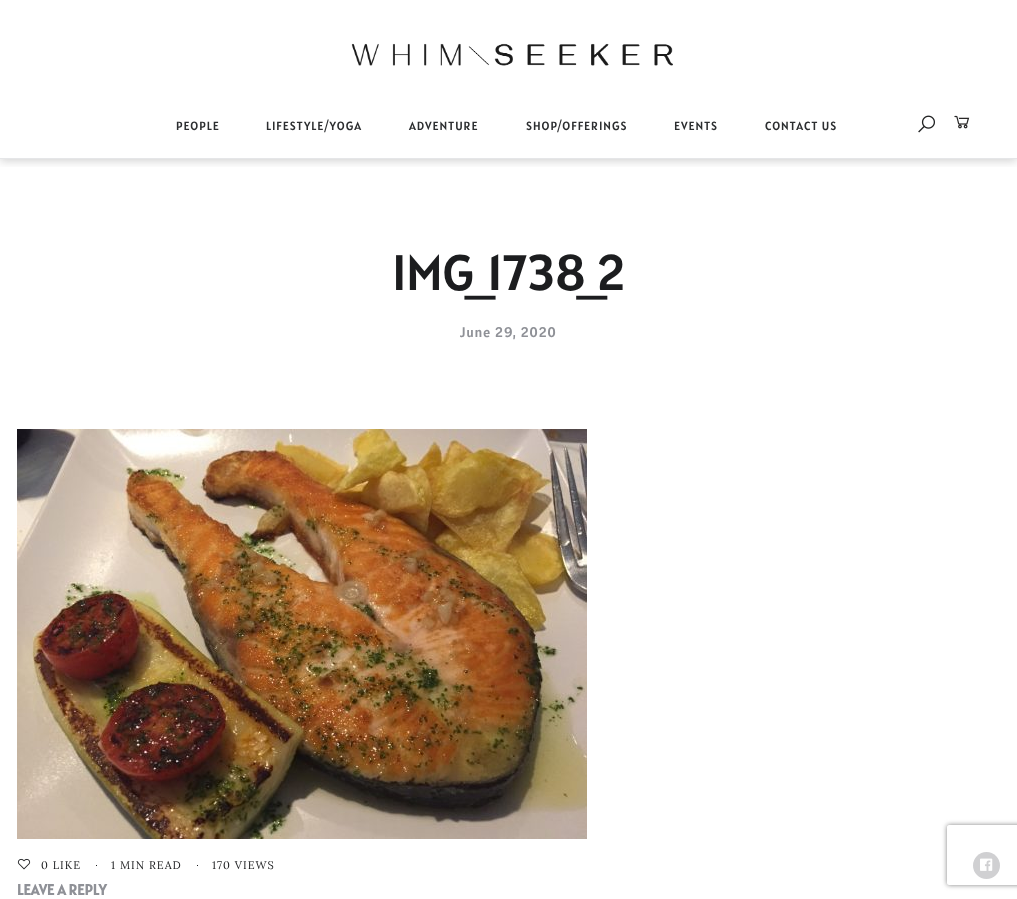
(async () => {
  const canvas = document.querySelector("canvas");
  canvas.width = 1017;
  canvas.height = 899;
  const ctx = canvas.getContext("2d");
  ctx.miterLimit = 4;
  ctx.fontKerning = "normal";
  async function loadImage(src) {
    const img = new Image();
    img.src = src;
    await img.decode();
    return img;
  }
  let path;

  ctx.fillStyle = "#ffffff";
  ctx.fillRect(0, 0, 1017, 899);
  ctx.save();
  ctx.beginPath();
  ctx.rect(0, 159, 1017, 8);
  ctx.clip();
  ctx.fillStyle = "rgba(0, 0, 0, 0.18)";
  ctx.filter = "blur(5px)";
  ctx.beginPath();
  ctx.rect(0, 2, 1017, 159);
  ctx.fill();
  ctx.filter = "none";
  ctx.restore();
  ctx.fillStyle = "#e5e6e8";
  ctx.fillRect(0, 158, 1017, 1);
  ctx.drawImage(await loadImage("img/1.png"), 351, 43, 322, 23);
  ctx.drawImage(await loadImage("img/2.png"), 918, 115, 17, 18);
  ctx.drawImage(await loadImage("img/3.png"), 954, 115, 16, 14);
  ctx.drawImage(await loadImage("img/4.png"), 17, 429, 570, 410);
  ctx.drawImage(await loadImage("img/5.png"), 17, 858, 14, 12);
  ctx.fillStyle = "#1c1d1f";
  ctx.fillRect(96, 865, 1, 1);
  ctx.fillRect(197, 865, 1, 1);
  ctx.fillStyle = "#d0d0d2";
  ctx.beginPath();
  ctx.arc(986.5, 865.5, 13.5, 0, Math.PI * 2);
  ctx.fill();
  ctx.drawImage(await loadImage("img/6.png"), 980, 858, 13, 13);
  ctx.save();
  path = new Path2D("M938 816H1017V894H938ZM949 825H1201C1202 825 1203 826 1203 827V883C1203 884 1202 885 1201 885H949C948 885 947 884 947 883V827C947 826 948 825 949 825Z");
  ctx.clip(path, "evenodd");
  ctx.fillStyle = "#808080";
  ctx.filter = "blur(2.5px)";
  ctx.beginPath();
  ctx.roundRect(947, 825, 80, 60, 2);
  ctx.fill();
  ctx.filter = "none";
  ctx.restore();
  ctx.letterSpacing = "1px";
  ctx.font = "12px Alatsi";
  ctx.fillStyle = "#2c2e30";
  for (const [text, x, y] of [
    ["PEOPLE", 176, 130],
    ["LIFESTYLE/YOGA", 266, 130],
    ["ADVENTURE", 409, 130],
    ["SHOP/OFFERINGS", 526, 130],
    ["EVENTS", 674, 130],
    ["CONTACT US", 765, 130],
  ]) {
    ctx.fillText(text, x, y);
  }
  ctx.letterSpacing = "0px";
  ctx.font = "50px Alatsi";
  ctx.fillStyle = "#1c1d1f";
  ctx.fillText("IMG_1738_2", 392, 290);
  ctx.letterSpacing = "1px";
  ctx.font = "14px Alatsi";
  ctx.fillStyle = "#8f9197";
  ctx.fillText("June 29, 2020", 460, 337);
  ctx.font = "11px Lora";
  ctx.fillStyle = "#1c1d1f";
  for (const [text, x, y] of [
    ["0 LIKE", 41, 869],
    ["1 MIN READ", 111, 869],
    ["170 VIEWS", 212, 869],
  ]) {
    ctx.fillText(text, x, y);
  }
  ctx.letterSpacing = "0px";
  ctx.font = "bold 15px Alatsi";
  ctx.fillStyle = "#8f9197";
  ctx.fillText("LEAVE A REPLY", 17, 895);
})();
